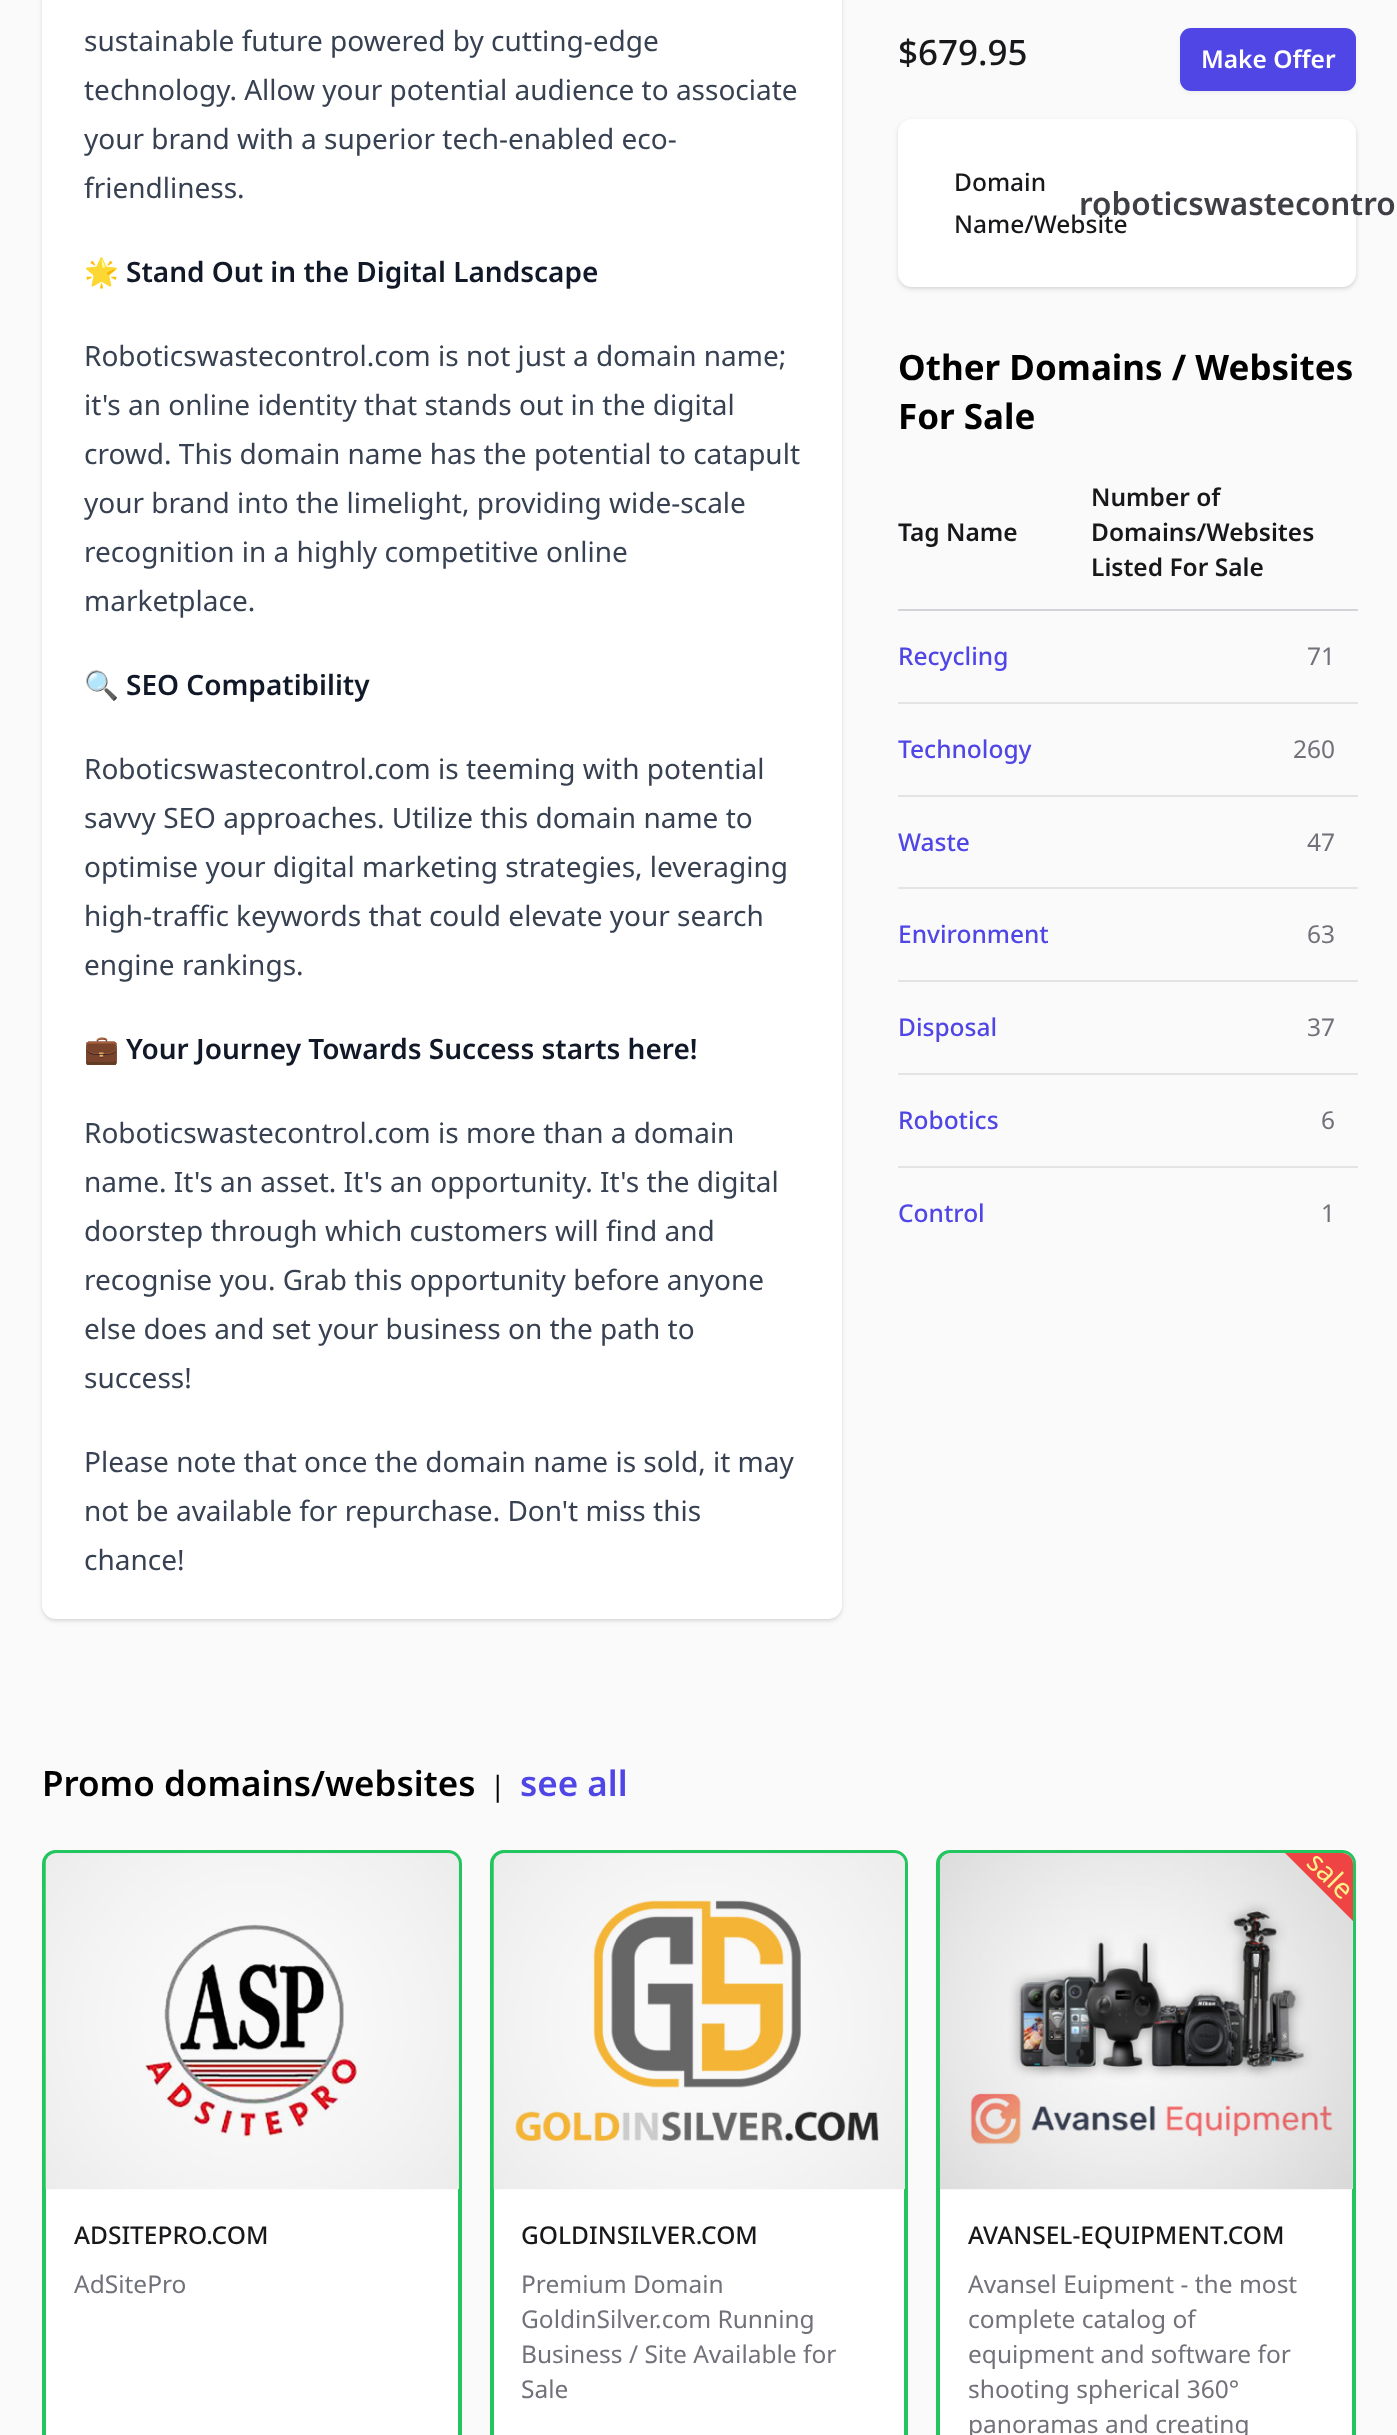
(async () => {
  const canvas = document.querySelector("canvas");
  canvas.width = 1397;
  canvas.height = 2435;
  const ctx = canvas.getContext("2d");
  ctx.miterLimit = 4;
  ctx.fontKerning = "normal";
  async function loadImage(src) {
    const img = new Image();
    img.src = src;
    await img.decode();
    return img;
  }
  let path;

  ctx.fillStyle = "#fafafa";
  ctx.fillRect(0, 0, 1397, 2435);
  ctx.fillStyle = "rgba(0, 0, 0, 0.1)";
  ctx.filter = "blur(2px)";
  ctx.beginPath();
  ctx.roundRect(44, -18, 796, 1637, 12);
  ctx.fill();
  ctx.filter = "none";
  ctx.filter = "blur(2.5px)";
  ctx.beginPath();
  ctx.roundRect(42, -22, 800, 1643, 14);
  ctx.fill();
  ctx.filter = "none";
  ctx.fillStyle = "#ffffff";
  ctx.beginPath();
  ctx.roundRect(42, -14, 800, 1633, 14);
  ctx.fill();
  ctx.fillStyle = "rgba(0, 0, 0, 0.05)";
  ctx.filter = "blur(2px)";
  ctx.beginPath();
  ctx.roundRect(1180, 30, 176, 63, 11);
  ctx.fill();
  ctx.filter = "none";
  ctx.fillStyle = "#4f46e5";
  ctx.beginPath();
  ctx.roundRect(1180, 28, 176, 63, 11);
  ctx.fill();
  ctx.fillStyle = "rgba(0, 0, 0, 0.1)";
  ctx.filter = "blur(2px)";
  ctx.beginPath();
  ctx.roundRect(900, 123, 455, 164, 12);
  ctx.fill();
  ctx.filter = "none";
  ctx.filter = "blur(2.5px)";
  ctx.beginPath();
  ctx.roundRect(898, 121, 458, 168, 14);
  ctx.fill();
  ctx.filter = "none";
  ctx.fillStyle = "#ffffff";
  ctx.beginPath();
  ctx.roundRect(898, 119, 458, 168, 14);
  ctx.fill();
  for (const [x, y, w, h, color] of [
    [898, 609, 460, 2, "#d4d4d8"],
    [898, 702, 460, 2, "#e4e4e7"],
    [898, 795, 460, 2, "#e4e4e7"],
    [898, 887, 460, 2, "#e4e4e7"],
    [898, 980, 460, 2, "#e4e4e7"],
    [898, 1073, 460, 2, "#e4e4e7"],
    [898, 1166, 460, 2, "#e4e4e7"],
  ]) {
    ctx.fillStyle = color;
    ctx.fillRect(x, y, w, h);
  }
  ctx.fillStyle = "#ffffff";
  ctx.beginPath();
  ctx.roundRect(44, 1852, 416, 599, 12);
  ctx.fill();
  ctx.strokeStyle = "#22c55e";
  ctx.lineWidth = 4;
  ctx.stroke();
  ctx.fillStyle = "#e4e4e7";
  ctx.beginPath();
  ctx.roundRect(46, 1853, 413, 336, [11, 11, 0, 0]);
  ctx.fill();
  ctx.drawImage(await loadImage("img/1.png"), 45, 1853, 414, 337);
  ctx.fillStyle = "#ffffff";
  ctx.beginPath();
  ctx.roundRect(492, 1852, 414, 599, 12);
  ctx.fill();
  ctx.stroke();
  ctx.fillStyle = "#e4e4e7";
  ctx.beginPath();
  ctx.roundRect(494, 1853, 411, 336, [11, 11, 0, 0]);
  ctx.fill();
  ctx.drawImage(await loadImage("img/2.png"), 493, 1853, 412, 337);
  ctx.fillStyle = "#ffffff";
  ctx.beginPath();
  ctx.roundRect(938, 1852, 416, 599, 12);
  ctx.fill();
  ctx.stroke();
  ctx.fillStyle = "#e4e4e7";
  ctx.beginPath();
  ctx.roundRect(940, 1853, 413, 336, [11, 11, 0, 0]);
  ctx.fill();
  ctx.drawImage(await loadImage("img/3.png"), 939, 1853, 414, 337);
  ctx.fillStyle = "#ef4444";
  path = new Path2D("M1353 1921L1285 1853H1342C1348 1853 1353 1858 1353 1864Z");
  ctx.fill(path);
  ctx.font = "28px Noto Sans";
  ctx.fillStyle = "#374151";
  for (const [text, x, y] of [
    ["sustainable future powered by cutting-edge", 84, 51],
    ["technology. Allow your potential audience to associate", 84, 100],
    ["your brand with a superior tech-enabled eco-", 84, 149],
    ["friendliness.", 84, 198],
  ]) {
    ctx.fillText(text, x, y);
  }
  ctx.font = "28px Noto Color Emoji";
  ctx.fillText("🌟", 84, 282);
  ctx.font = "600 28px Noto Sans";
  ctx.fillStyle = "#111827";
  ctx.fillText("Stand Out in the Digital Landscape", 126, 282);
  ctx.font = "28px Noto Sans";
  ctx.fillStyle = "#374151";
  for (const [text, x, y] of [
    ["Roboticswastecontrol.com is not just a domain name;", 84, 366],
    ["it's an online identity that stands out in the digital", 84, 415],
    ["crowd. This domain name has the potential to catapult", 84, 464],
    ["your brand into the limelight, providing wide-scale", 84, 513],
    ["recognition in a highly competitive online", 84, 562],
    ["marketplace.", 84, 611],
  ]) {
    ctx.fillText(text, x, y);
  }
  ctx.font = "28px Noto Color Emoji";
  ctx.fillText("🔍", 84, 695);
  ctx.font = "600 28px Noto Sans";
  ctx.fillStyle = "#111827";
  ctx.fillText("SEO Compatibility", 126, 695);
  ctx.font = "28px Noto Sans";
  ctx.fillStyle = "#374151";
  for (const [text, x, y] of [
    ["Roboticswastecontrol.com is teeming with potential", 84, 779],
    ["savvy SEO approaches. Utilize this domain name to", 84, 828],
    ["optimise your digital marketing strategies, leveraging", 84, 877],
    ["high-traffic keywords that could elevate your search", 84, 926],
    ["engine rankings.", 84, 975],
  ]) {
    ctx.fillText(text, x, y);
  }
  ctx.font = "28px Noto Color Emoji";
  ctx.fillText("💼", 84, 1059);
  ctx.font = "600 28px Noto Sans";
  ctx.fillStyle = "#111827";
  ctx.fillText("Your Journey Towards Success starts here!", 126, 1059);
  ctx.font = "28px Noto Sans";
  ctx.fillStyle = "#374151";
  for (const [text, x, y] of [
    ["Roboticswastecontrol.com is more than a domain", 84, 1143],
    ["name. It's an asset. It's an opportunity. It's the digital", 84, 1192],
    ["doorstep through which customers will find and", 84, 1241],
    ["recognise you. Grab this opportunity before anyone", 84, 1290],
    ["else does and set your business on the path to", 84, 1339],
    ["success!", 84, 1388],
    ["Please note that once the domain name is sold, it may", 84, 1472],
    ["not be available for repurchase. Don't miss this", 84, 1521],
    ["chance!", 84, 1570],
  ]) {
    ctx.fillText(text, x, y);
  }
  ctx.font = "500 35px Noto Sans";
  ctx.fillStyle = "#18181b";
  ctx.fillText("$679.95", 898, 65);
  ctx.font = "600 24.5px Noto Sans";
  ctx.fillStyle = "#ffffff";
  ctx.fillText("Make Offer", 1201, 68);
  ctx.font = "500 24.5px Noto Sans";
  ctx.fillStyle = "#18181b";
  ctx.fillText("Domain", 954, 191);
  ctx.fillText("Name/Website", 954, 233);
  ctx.font = "600 31.5px Noto Sans";
  ctx.fillStyle = "#3f3f46";
  ctx.fillText("roboticswastecontro", 1079, 215);
  ctx.font = "bold 35px Noto Sans";
  ctx.fillStyle = "#000000";
  ctx.fillText("Other Domains / Websites", 898, 380);
  ctx.fillText("For Sale", 898, 429);
  ctx.font = "600 24.5px Noto Sans";
  ctx.fillStyle = "#18181b";
  for (const [text, x, y] of [
    ["Tag Name", 898, 541],
    ["Number of", 1091, 506],
    ["Domains/Websites", 1091, 541],
    ["Listed For Sale", 1091, 576],
  ]) {
    ctx.fillText(text, x, y);
  }
  ctx.font = "500 24.5px Noto Sans";
  ctx.fillStyle = "#4f46e5";
  ctx.fillText("Recycling", 898, 665);
  ctx.font = "24.5px Noto Sans";
  ctx.fillStyle = "#71717a";
  ctx.fillText("71", 1307, 665);
  ctx.font = "500 24.5px Noto Sans";
  ctx.fillStyle = "#4f46e5";
  ctx.fillText("Technology", 898, 758);
  ctx.font = "24.5px Noto Sans";
  ctx.fillStyle = "#71717a";
  ctx.fillText("260", 1293, 758);
  ctx.font = "500 24.5px Noto Sans";
  ctx.fillStyle = "#4f46e5";
  ctx.fillText("Waste", 898, 851);
  ctx.font = "24.5px Noto Sans";
  ctx.fillStyle = "#71717a";
  ctx.fillText("47", 1307, 851);
  ctx.font = "500 24.5px Noto Sans";
  ctx.fillStyle = "#4f46e5";
  ctx.fillText("Environment", 898, 943);
  ctx.font = "24.5px Noto Sans";
  ctx.fillStyle = "#71717a";
  ctx.fillText("63", 1307, 943);
  ctx.font = "500 24.5px Noto Sans";
  ctx.fillStyle = "#4f46e5";
  ctx.fillText("Disposal", 898, 1036);
  ctx.font = "24.5px Noto Sans";
  ctx.fillStyle = "#71717a";
  ctx.fillText("37", 1307, 1036);
  ctx.font = "500 24.5px Noto Sans";
  ctx.fillStyle = "#4f46e5";
  ctx.fillText("Robotics", 898, 1129);
  ctx.font = "24.5px Noto Sans";
  ctx.fillStyle = "#71717a";
  ctx.fillText("6", 1321, 1129);
  ctx.font = "500 24.5px Noto Sans";
  ctx.fillStyle = "#4f46e5";
  ctx.fillText("Control", 898, 1222);
  ctx.font = "24.5px Noto Sans";
  ctx.fillStyle = "#71717a";
  ctx.fillText("1", 1321, 1222);
  ctx.font = "600 35px Noto Sans";
  ctx.fillStyle = "#000000";
  ctx.fillText("Promo domains/websites", 42, 1796);
  ctx.font = "28px Noto Sans";
  ctx.fillText("|", 490, 1796);
  ctx.font = "600 35px Noto Sans";
  ctx.fillStyle = "#4f46e5";
  ctx.fillText("see all", 520, 1796);
  ctx.font = "500 24.5px Noto Sans";
  ctx.fillStyle = "#18181b";
  ctx.fillText("ADSITEPRO.COM", 74, 2244);
  ctx.font = "24.5px Noto Sans";
  ctx.fillStyle = "#71717a";
  ctx.fillText("AdSitePro", 74, 2293);
  ctx.font = "500 24.5px Noto Sans";
  ctx.fillStyle = "#18181b";
  ctx.fillText("GOLDINSILVER.COM", 521, 2244);
  ctx.font = "24.5px Noto Sans";
  ctx.fillStyle = "#71717a";
  for (const [text, x, y] of [
    ["Premium Domain", 521, 2293],
    ["GoldinSilver.com Running", 521, 2328],
    ["Business / Site Available for", 521, 2363],
    ["Sale", 521, 2398],
  ]) {
    ctx.fillText(text, x, y);
  }
  ctx.font = "28px Noto Sans";
  ctx.fillStyle = "#fef08a";
  ctx.save();
  ctx.translate(1305, 1864);
  ctx.rotate(45 * Math.PI / 180);
  ctx.fillText("sale", 0, 0);
  ctx.restore();
  ctx.font = "500 24.5px Noto Sans";
  ctx.fillStyle = "#18181b";
  ctx.fillText("AVANSEL-EQUIPMENT.COM", 968, 2244);
  ctx.font = "24.5px Noto Sans";
  ctx.fillStyle = "#71717a";
  for (const [text, x, y] of [
    ["Avansel Euipment - the most", 968, 2293],
    ["complete catalog of", 968, 2328],
    ["equipment and software for", 968, 2363],
    ["shooting spherical 360°", 968, 2398],
    ["panoramas and creating", 968, 2433],
  ]) {
    ctx.fillText(text, x, y);
  }
})();
